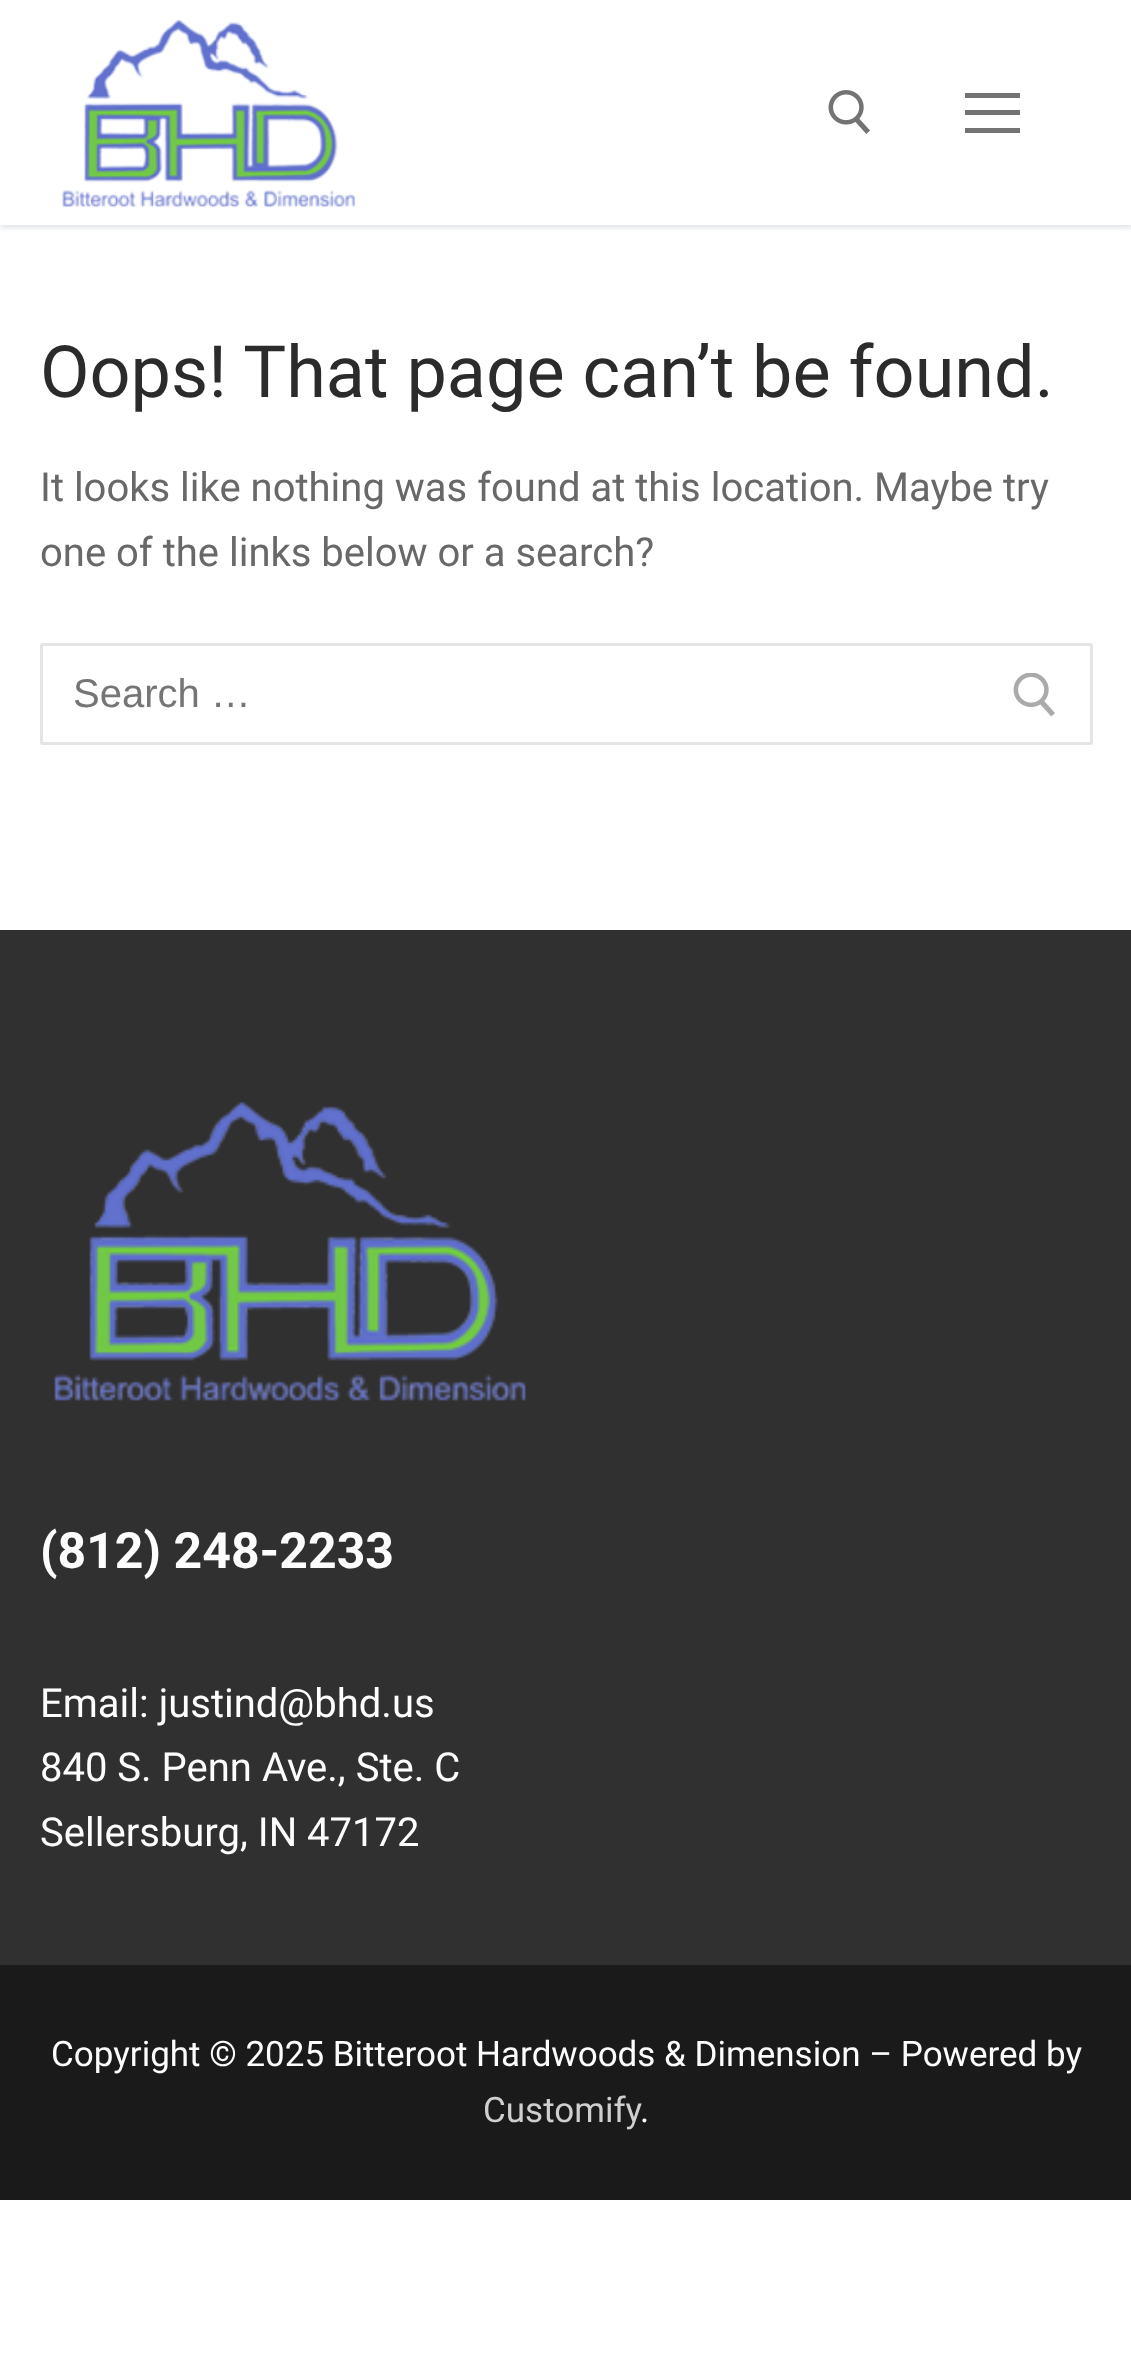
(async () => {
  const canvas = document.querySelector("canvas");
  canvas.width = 1131;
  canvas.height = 2372;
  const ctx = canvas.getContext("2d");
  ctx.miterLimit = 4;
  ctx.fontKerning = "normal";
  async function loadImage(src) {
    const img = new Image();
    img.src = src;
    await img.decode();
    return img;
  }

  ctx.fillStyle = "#ffffff";
  ctx.fillRect(0, 0, 1131, 2372);
  ctx.save();
  ctx.beginPath();
  ctx.rect(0, 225, 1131, 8);
  ctx.clip();
  ctx.fillStyle = "#e1e5ea";
  ctx.filter = "blur(2.5px)";
  ctx.beginPath();
  ctx.rect(0, 3, 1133, 225);
  ctx.fill();
  ctx.filter = "none";
  ctx.restore();
  ctx.drawImage(await loadImage("img/1.png"), 62, 19, 294, 189);
  ctx.drawImage(await loadImage("img/2.png"), 828, 90, 42, 44);
  for (const [x, y, w, h, color] of [
    [965, 110, 55, 5, "#737373"],
    [965, 93, 55, 5, "#737373"],
    [965, 128, 55, 5, "#737373"],
  ]) {
    ctx.fillStyle = color;
    ctx.fillRect(x, y, w, h);
  }
  ctx.beginPath();
  ctx.roundRect(41.5, 644.5, 1050, 99, 1);
  ctx.strokeStyle = "#e5e5e5";
  ctx.lineWidth = 3;
  ctx.stroke();
  ctx.drawImage(await loadImage("img/3.png"), 1013, 673, 42, 44);
  ctx.fillStyle = "#303030";
  ctx.fillRect(0, 930, 1131, 1035);
  ctx.drawImage(await loadImage("img/4.png"), 54, 1101, 472, 300);
  ctx.fillStyle = "#1a1a1a";
  ctx.fillRect(0, 1965, 1131, 235);
  ctx.font = "72px Roboto";
  ctx.fillStyle = "#2b2b2b";
  ctx.fillText("Oops! That page can’t be found.", 40, 397);
  ctx.font = "40px Roboto";
  ctx.fillStyle = "#686868";
  ctx.fillText("It looks like nothing was found at this location. Maybe try", 40, 501);
  ctx.fillText("one of the links below or a search?", 40, 566);
  ctx.font = "40px Liberation Sans";
  ctx.fillStyle = "#757575";
  ctx.fillText("Search …", 73, 707);
  ctx.font = "bold 50px Roboto";
  ctx.fillStyle = "#fdfdfd";
  ctx.fillText("(812) 248-2233", 40, 1568);
  ctx.font = "40px Roboto";
  for (const [text, x, y] of [
    ["Email: justind@bhd.us", 40, 1717],
    ["840 S. Penn Ave., Ste. C", 40, 1781],
    ["Sellersburg, IN 47172", 40, 1846],
  ]) {
    ctx.fillText(text, x, y);
  }
  ctx.font = "35px Roboto";
  ctx.fillText("Copyright © 2025 Bitteroot Hardwoods & Dimension – Powered by", 51, 2066);
  ctx.fillStyle = "#cfcfcf";
  ctx.fillText("Customify", 483, 2122);
  ctx.fillStyle = "#fdfdfd";
  ctx.fillText(".", 640, 2122);
})();
